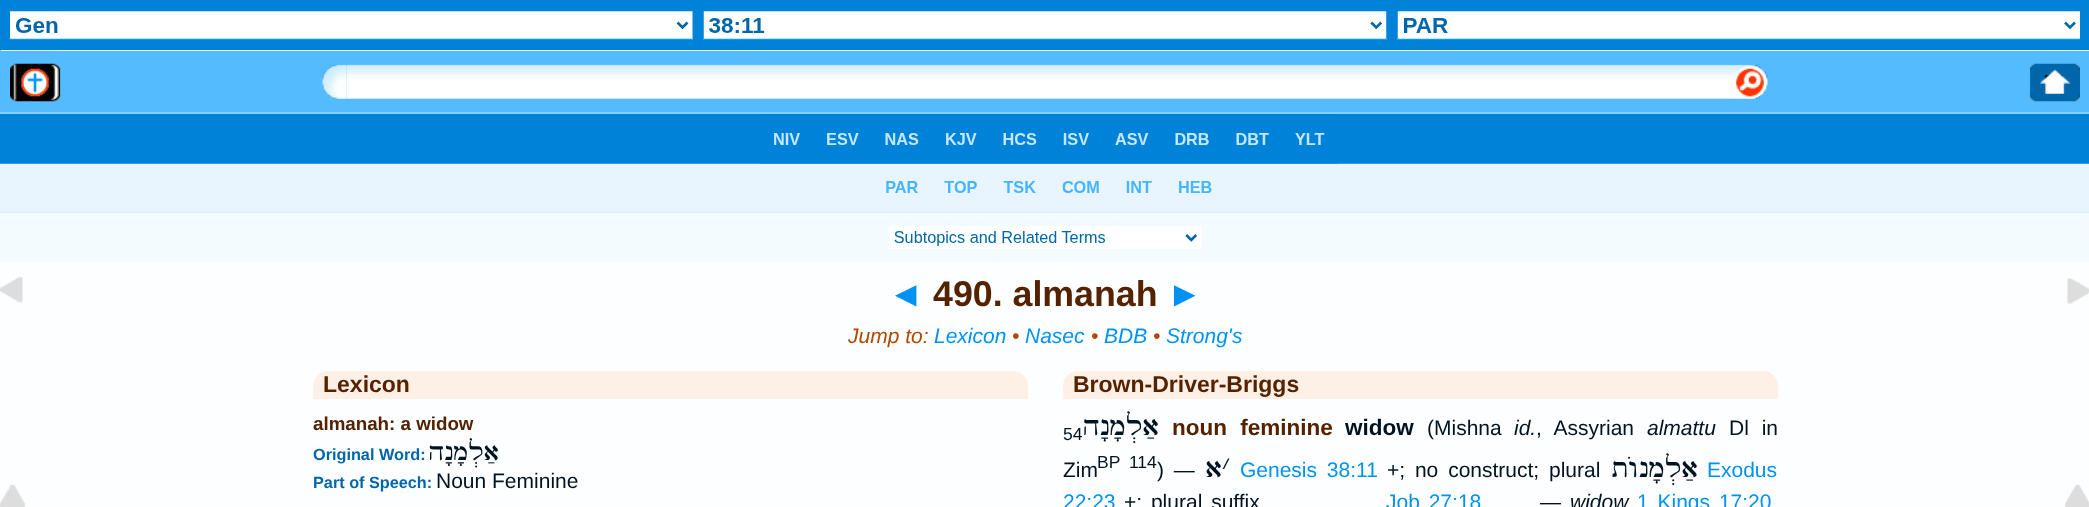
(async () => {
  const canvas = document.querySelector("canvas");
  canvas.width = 2089;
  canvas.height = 507;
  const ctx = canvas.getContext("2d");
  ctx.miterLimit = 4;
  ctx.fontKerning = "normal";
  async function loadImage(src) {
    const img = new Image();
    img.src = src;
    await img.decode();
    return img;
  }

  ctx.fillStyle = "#fdfeff";
  ctx.fillRect(0, 0, 2089, 507);
  ctx.drawImage(await loadImage("img/2.png"), 0, 50, 2089, 64);
  ctx.fillStyle = "#e8f5ff";
  ctx.filter = "blur(0.5px)";
  ctx.beginPath();
  ctx.rect(1, 1, 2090, 50);
  ctx.fill();
  ctx.filter = "none";
  ctx.fillStyle = "#0082d9";
  ctx.fillRect(0, 0, 2089, 50);
  ctx.drawImage(await loadImage("img/1.png"), 10, 11, 2070, 29);
  ctx.drawImage(await loadImage("img/3.png"), 0, 113, 2089, 100);
  ctx.drawImage(await loadImage("img/4.png"), 0, 212, 2089, 50);
  ctx.drawImage(await loadImage("img/5.png"), 0, 276, 23, 27);
  ctx.drawImage(await loadImage("img/6.png"), 2067, 278, 22, 26);
  ctx.drawImage(await loadImage("img/7.png"), 0, 484, 26, 23);
  ctx.fillStyle = "#fff0e6";
  ctx.beginPath();
  ctx.roundRect(313, 371, 715, 28, [15, 15, 0, 0]);
  ctx.fill();
  ctx.beginPath();
  ctx.roundRect(1063, 371, 715, 28, [15, 15, 0, 0]);
  ctx.fill();
  ctx.drawImage(await loadImage("img/8.png"), 2065, 484, 24, 23);
  ctx.font = "bold 35.75px Liberation Sans";
  ctx.fillStyle = "#0092f2";
  ctx.fillText("◄", 888, 306);
  ctx.fillStyle = "#552200";
  ctx.fillText("490. almanah", 933, 306);
  ctx.fillStyle = "#0092f2";
  ctx.fillText("►", 1167, 306);
  ctx.font = "italic 21px Liberation Sans";
  ctx.fillStyle = "#b34700";
  ctx.fillText("Jump to:", 848, 343);
  ctx.fillStyle = "#0092f2";
  ctx.fillText("Lexicon", 934, 343);
  ctx.fillStyle = "#b34700";
  ctx.fillText("•", 1012, 343);
  ctx.fillStyle = "#0092f2";
  ctx.fillText("Nasec", 1025, 343);
  ctx.fillStyle = "#b34700";
  ctx.fillText("•", 1091, 343);
  ctx.fillStyle = "#0092f2";
  ctx.fillText("BDB", 1104, 343);
  ctx.fillStyle = "#b34700";
  ctx.fillText("•", 1153, 343);
  ctx.fillStyle = "#0092f2";
  ctx.fillText("Strong's", 1166, 343);
  ctx.font = "bold 23px Liberation Sans";
  ctx.fillStyle = "#552200";
  ctx.fillText("Lexicon", 323, 392);
  ctx.font = "bold 18.75px Liberation Sans";
  ctx.fillText("almanah: a widow", 313, 430);
  ctx.font = "bold 16.25px Liberation Sans";
  ctx.fillStyle = "#0066aa";
  ctx.fillText("Original Word:", 313, 460);
  ctx.direction = "rtl";
  ctx.font = "24px Cardo";
  ctx.fillStyle = "#001320";
  ctx.fillText("אַלְמָנָה", 499, 460);
  ctx.direction = "ltr";
  ctx.font = "bold 16.25px Liberation Sans";
  ctx.fillStyle = "#0066aa";
  ctx.fillText("Part of Speech:", 313, 488);
  ctx.font = "21px Liberation Sans";
  ctx.fillStyle = "#001320";
  ctx.fillText("Noun Feminine", 436, 488);
  ctx.font = "bold 23px Liberation Sans";
  ctx.fillStyle = "#552200";
  ctx.fillText("Brown-Driver-Briggs", 1073, 392);
  ctx.font = "17.5px Liberation Sans";
  ctx.fillStyle = "#001320";
  ctx.fillText("54", 1063, 440);
  ctx.direction = "rtl";
  ctx.font = "26px Cardo";
  ctx.fillText("אַלְמָנָה", 1159, 435);
  ctx.wordSpacing = "7px";
  ctx.direction = "ltr";
  ctx.font = "bold 22.5px Liberation Sans";
  ctx.fillStyle = "#552200";
  ctx.fillText("noun feminine", 1172, 435);
  ctx.wordSpacing = "0px";
  ctx.fillStyle = "#001320";
  ctx.fillText("widow", 1345, 435);
  ctx.font = "21px Liberation Sans";
  ctx.fillText("(Mishna", 1427, 435);
  ctx.font = "italic 21px Liberation Sans";
  ctx.fillText("id.", 1514, 435);
  ctx.wordSpacing = "7px";
  ctx.font = "21px Liberation Sans";
  ctx.fillText(", Assyrian", 1536, 435);
  ctx.wordSpacing = "0px";
  ctx.font = "italic 21px Liberation Sans";
  ctx.fillText("almattu", 1647, 435);
  ctx.wordSpacing = "7px";
  ctx.font = "21px Liberation Sans";
  ctx.fillText("Dl in", 1729, 435);
  ctx.wordSpacing = "0px";
  ctx.fillText("Zim", 1063, 477);
  ctx.wordSpacing = "4px";
  ctx.font = "17.5px Liberation Sans";
  ctx.fillText("BP 114", 1097, 468);
  ctx.font = "21px Liberation Sans";
  ctx.fillText(") —", 1157, 477);
  ctx.wordSpacing = "0px";
  ctx.direction = "rtl";
  ctx.font = "26px Cardo";
  ctx.fillText("א", 1222, 477);
  ctx.fillText("׳", 1230, 477);
  ctx.wordSpacing = "4px";
  ctx.direction = "ltr";
  ctx.font = "21px Liberation Sans";
  ctx.fillStyle = "#0092f2";
  ctx.fillText("Genesis 38:11", 1240, 477);
  ctx.fillStyle = "#001320";
  ctx.fillText("+; no construct; plural", 1387, 477);
  ctx.wordSpacing = "0px";
  ctx.direction = "rtl";
  ctx.font = "26px Cardo";
  ctx.fillText("אַלְמָנוֺת", 1698, 477);
  ctx.direction = "ltr";
  ctx.font = "21px Liberation Sans";
  ctx.fillStyle = "#0092f2";
  ctx.fillText("Exodus", 1707, 477);
  ctx.fillText("22:23", 1063, 509);
  ctx.wordSpacing = "3px";
  ctx.fillStyle = "#001320";
  ctx.fillText("+; plural suffix", 1124, 509);
  ctx.fillStyle = "#0092f2";
  ctx.fillText("Job 27:18", 1386, 509);
  ctx.fillStyle = "#001320";
  ctx.fillText("—", 1540, 509);
  ctx.wordSpacing = "0px";
  ctx.font = "italic 21px Liberation Sans";
  ctx.fillText("widow", 1570, 509);
  ctx.wordSpacing = "3px";
  ctx.font = "21px Liberation Sans";
  ctx.fillStyle = "#0092f2";
  ctx.fillText("1 Kings 17:20", 1637, 509);
})();
